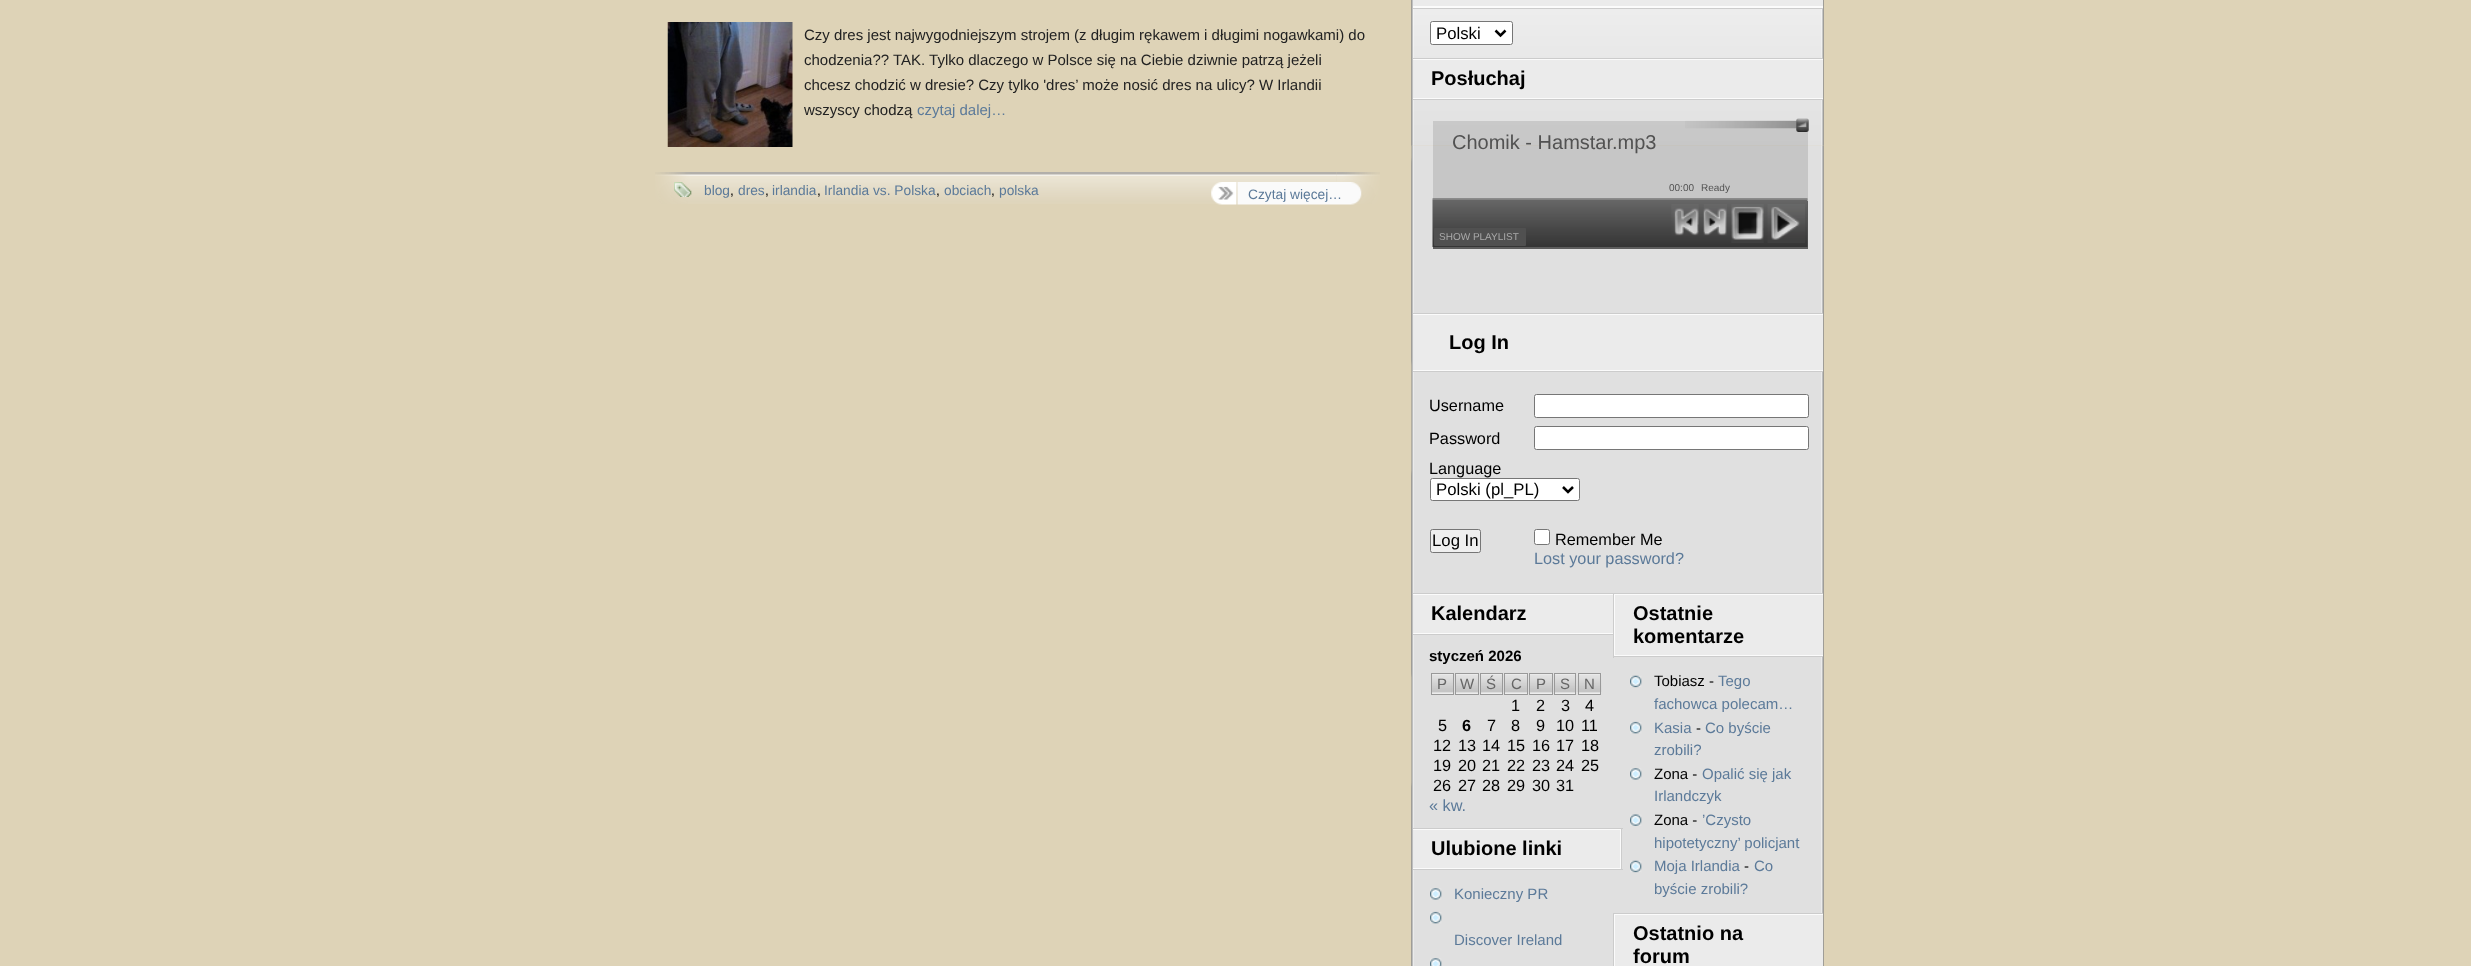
(async () => {
  const canvas = document.querySelector("canvas");
  canvas.width = 2471;
  canvas.height = 966;
  const ctx = canvas.getContext("2d");
  ctx.miterLimit = 4;
  ctx.fontKerning = "normal";
  async function loadImage(src) {
    const img = new Image();
    img.src = src;
    await img.decode();
    return img;
  }
  let path;

  ctx.fillStyle = "#ded3b7";
  ctx.fillRect(0, 0, 2471, 966);
  ctx.drawImage(await loadImage("img/1.png"), 667, 22, 126, 125);
  ctx.drawImage(await loadImage("img/2.png"), 655, 172, 682, 32);
  ctx.drawImage(await loadImage("img/3.png"), 674, 182, 18, 15);
  ctx.drawImage(await loadImage("img/4.png"), 1211, 182, 26, 23);
  ctx.drawImage(await loadImage("img/6.png"), 1336, 172, 44, 32);
  ctx.drawImage(await loadImage("img/5.png"), 1237, 182, 125, 23);
  ctx.drawImage(await loadImage("img/7.png"), 1411, 0, 394, 146);
  ctx.drawImage(await loadImage("img/10.png"), 1805, 145, 19, 821);
  ctx.drawImage(await loadImage("img/8.png"), 1805, 0, 19, 146);
  ctx.drawImage(await loadImage("img/9.png"), 1411, 145, 394, 821);
  for (const [x, y, w, h, color] of [
    [1413, 6, 410, 2, "#fbfbfb"],
    [1413, 8, 410, 1, "#cccccc"],
    [1413, 0, 410, 6, "#ebebeb"],
  ]) {
    ctx.fillStyle = color;
    ctx.fillRect(x, y, w, h);
  }
  ctx.fillStyle = "#ffffff";
  ctx.beginPath();
  ctx.roundRect(1430.5, 21.5, 82, 23, 2);
  ctx.fill();
  ctx.strokeStyle = "#767676";
  ctx.stroke();
  path = new Path2D("M1495.5 30.5L1500.5 35.5L1505.5 30.5");
  ctx.strokeStyle = "#000000";
  ctx.lineWidth = 2.5;
  ctx.stroke(path);
  for (const [x, y, w, h, color] of [
    [1413, 59, 410, 40, "#fbfbfb"],
    [1413, 58, 410, 1, "#cccccc"],
    [1413, 99, 410, 1, "#cccccc"],
    [1413, 60, 410, 38, "#ebebeb"],
    [1433, 121, 375, 79, "rgba(51, 51, 51, 0.15)"],
  ]) {
    ctx.fillStyle = color;
    ctx.fillRect(x, y, w, h);
  }
  ctx.drawImage(await loadImage("img/11.png"), 1685, 120, 112, 9);
  ctx.drawImage(await loadImage("img/12.png"), 1796, 118, 13, 14);
  ctx.drawImage(await loadImage("img/13.png"), 1432, 198, 376, 2);
  ctx.fillStyle = "rgba(50, 50, 50, 0.75)";
  ctx.filter = "blur(0.5px)";
  ctx.beginPath();
  ctx.rect(1433, 201, 375, 48);
  ctx.fill();
  ctx.filter = "none";
  ctx.drawImage(await loadImage("img/18.png"), 1432, 199, 376, 48);
  ctx.fillStyle = "#505050";
  ctx.beginPath();
  ctx.roundRect(1434, 228, 92, 18, 1);
  ctx.fill();
  ctx.drawImage(await loadImage("img/14.png"), 1671, 204, 28, 32);
  ctx.drawImage(await loadImage("img/15.png"), 1703, 204, 24, 32);
  ctx.drawImage(await loadImage("img/16.png"), 1731, 204, 33, 39);
  ctx.drawImage(await loadImage("img/17.png"), 1767, 204, 38, 39);
  for (const [x, y, w, h, color] of [
    [1413, 314, 410, 57, "#fbfbfb"],
    [1413, 313, 410, 1, "#cccccc"],
    [1413, 371, 410, 1, "#cccccc"],
    [1413, 315, 410, 55, "#ebebeb"],
  ]) {
    ctx.fillStyle = color;
    ctx.fillRect(x, y, w, h);
  }
  ctx.fillStyle = "#ffffff";
  ctx.beginPath();
  ctx.roundRect(1534.5, 394.5, 274, 23, 2);
  ctx.fill();
  ctx.strokeStyle = "#767676";
  ctx.lineWidth = 1;
  ctx.stroke();
  ctx.beginPath();
  ctx.roundRect(1534.5, 426.5, 274, 23, 2);
  ctx.fill();
  ctx.stroke();
  ctx.beginPath();
  ctx.roundRect(1430.5, 478.5, 149, 22, 2);
  ctx.fill();
  ctx.stroke();
  path = new Path2D("M1563 487L1568 492L1573 487");
  ctx.strokeStyle = "#000000";
  ctx.lineWidth = 2.5;
  ctx.stroke(path);
  ctx.fillStyle = "#efefef";
  ctx.beginPath();
  ctx.roundRect(1430.5, 529.5, 50, 23, 2);
  ctx.fill();
  ctx.strokeStyle = "#767676";
  ctx.lineWidth = 1;
  ctx.stroke();
  ctx.fillStyle = "#ffffff";
  ctx.beginPath();
  ctx.roundRect(1534.5, 529.5, 15, 15, 2);
  ctx.fill();
  ctx.stroke();
  for (const [x, y, w, h, color] of [
    [1413, 594, 200, 40, "#fbfbfb"],
    [1413, 593, 410, 1, "#cccccc"],
    [1413, 634, 200, 1, "#cccccc"],
    [1413, 595, 200, 38, "#ebebeb"],
    [1432, 693, 21, 1, "#f2f2f2"],
  ]) {
    ctx.fillStyle = color;
    ctx.fillRect(x, y, w, h);
  }
  ctx.drawImage(await loadImage("img/19.png"), 1432, 674, 21, 20);
  ctx.strokeStyle = "#999999";
  ctx.strokeRect(1431.5, 673.5, 22, 21);
  ctx.fillRect(1456, 693, 22, 1);
  ctx.drawImage(await loadImage("img/20.png"), 1456, 674, 22, 20);
  ctx.strokeRect(1455.5, 673.5, 23, 21);
  ctx.fillRect(1481, 693, 21, 1);
  ctx.drawImage(await loadImage("img/19.png"), 1481, 674, 21, 20);
  ctx.strokeRect(1480.5, 673.5, 22, 21);
  ctx.fillRect(1505, 693, 22, 1);
  ctx.drawImage(await loadImage("img/21.png"), 1503, 674, 24, 20);
  ctx.strokeRect(1504.5, 673.5, 23, 21);
  ctx.fillRect(1530, 693, 22, 1);
  ctx.drawImage(await loadImage("img/21.png"), 1528, 674, 24, 20);
  ctx.strokeRect(1529.5, 673.5, 23, 21);
  ctx.fillRect(1555, 693, 20, 1);
  ctx.drawImage(await loadImage("img/22.png"), 1553, 674, 24, 20);
  ctx.strokeRect(1554.5, 673.5, 21, 21);
  ctx.fillRect(1579, 693, 21, 1);
  ctx.drawImage(await loadImage("img/23.png"), 1577, 673, 25, 21);
  ctx.strokeRect(1578.5, 673.5, 22, 21);
  for (const [x, y, w, h, color] of [
    [1413, 829, 208, 40, "#fbfbfb"],
    [1413, 828, 210, 1, "#cccccc"],
    [1621, 828, 1, 42, "#cccccc"],
    [1413, 869, 210, 1, "#cccccc"],
    [1413, 830, 207, 38, "#ebebeb"],
  ]) {
    ctx.fillStyle = color;
    ctx.fillRect(x, y, w, h);
  }
  ctx.drawImage(await loadImage("img/24.png"), 1430, 888, 12, 12);
  ctx.drawImage(await loadImage("img/25.png"), 1430, 911, 12, 13);
  ctx.drawImage(await loadImage("img/26.png"), 1430, 958, 12, 8);
  for (const [x, y, w, h, color] of [
    [1614, 594, 209, 62, "#fbfbfb"],
    [1613, 656, 210, 1, "#cccccc"],
    [1613, 593, 1, 65, "#cccccc"],
    [1615, 595, 208, 60, "#ebebeb"],
  ]) {
    ctx.fillStyle = color;
    ctx.fillRect(x, y, w, h);
  }
  ctx.drawImage(await loadImage("img/27.png"), 1630, 675, 12, 13);
  ctx.drawImage(await loadImage("img/28.png"), 1630, 721, 12, 13);
  ctx.drawImage(await loadImage("img/24.png"), 1630, 768, 12, 12);
  ctx.drawImage(await loadImage("img/29.png"), 1630, 814, 12, 12);
  ctx.drawImage(await loadImage("img/27.png"), 1630, 860, 12, 13);
  for (const [x, y, w, h, color] of [
    [1614, 914, 209, 52, "#fbfbfb"],
    [1613, 913, 210, 1, "#cccccc"],
    [1613, 913, 1, 53, "#cccccc"],
    [1615, 915, 208, 51, "#ebebeb"],
  ]) {
    ctx.fillStyle = color;
    ctx.fillRect(x, y, w, h);
  }
  ctx.font = "15px Liberation Sans";
  ctx.fillStyle = "#222222";
  for (const [text, x, y] of [
    ["Czy dres jest najwygodniejszym strojem (z długim rękawem i długimi nogawkami) do", 804, 40],
    ["chodzenia?? TAK. Tylko dlaczego w Polsce się na Ciebie dziwnie patrzą jeżeli", 804, 65],
    ["chcesz chodzić w dresie? Czy tylko 'dres’ może nosić dres na ulicy? W Irlandii", 804, 90],
    ["wszyscy chodzą", 804, 115],
  ]) {
    ctx.fillText(text, x, y);
  }
  ctx.fillStyle = "#5c7a99";
  ctx.fillText("czytaj dalej…", 917, 115);
  ctx.font = "13.75px Liberation Sans";
  ctx.fillText("blog", 704, 195);
  ctx.fillStyle = "#000000";
  ctx.fillText(",", 730, 195);
  ctx.fillStyle = "#5c7a99";
  ctx.fillText("dres", 738, 195);
  ctx.fillStyle = "#000000";
  ctx.fillText(",", 765, 195);
  ctx.fillStyle = "#5c7a99";
  ctx.fillText("irlandia", 772, 195);
  ctx.fillStyle = "#000000";
  ctx.fillText(",", 817, 195);
  ctx.fillStyle = "#5c7a99";
  ctx.fillText("Irlandia vs. Polska", 824, 195);
  ctx.fillStyle = "#000000";
  ctx.fillText(",", 936, 195);
  ctx.fillStyle = "#5c7a99";
  ctx.fillText("obciach", 944, 195);
  ctx.fillStyle = "#000000";
  ctx.fillText(",", 991, 195);
  ctx.fillStyle = "#5c7a99";
  ctx.fillText("polska", 999, 195);
  ctx.fillText("Czytaj więcej…", 1248, 199);
  ctx.font = "16.75px Liberation Sans";
  ctx.fillStyle = "#000000";
  ctx.fillText("Polski", 1436, 39);
  ctx.font = "bold 20px Liberation Sans";
  ctx.fillText("Posłuchaj", 1431, 85);
  ctx.font = "20px Liberation Sans";
  ctx.fillStyle = "#525252";
  ctx.fillText("Chomik - Hamstar.mp3", 1452, 149);
  ctx.font = "10px Liberation Sans";
  ctx.fillText("00:00", 1669, 191);
  ctx.fillText("Ready", 1701, 191);
  ctx.fillStyle = "#aaaaaa";
  ctx.fillText("SHOW PLAYLIST", 1439, 240);
  ctx.font = "bold 20px Liberation Sans";
  ctx.fillStyle = "#000000";
  ctx.fillText("Log In", 1449, 349);
  ctx.font = "16.25px Liberation Sans";
  for (const [text, x, y] of [
    ["Username", 1429, 411],
    ["Password", 1429, 444],
    ["Language", 1429, 474],
  ]) {
    ctx.fillText(text, x, y);
  }
  ctx.font = "16.75px Liberation Sans";
  ctx.fillText("Polski (pl_PL)", 1436, 495);
  ctx.fillText("Log In", 1432, 546);
  ctx.font = "16.25px Liberation Sans";
  ctx.fillText("Remember Me", 1555, 545);
  ctx.fillStyle = "#5c7a99";
  ctx.fillText("Lost your password?", 1534, 564);
  ctx.font = "bold 20px Liberation Sans";
  ctx.fillStyle = "#000000";
  ctx.fillText("Kalendarz", 1431, 620);
  ctx.font = "bold 15px Liberation Sans";
  ctx.fillText("styczeń 2026", 1429, 661);
  ctx.font = "15px Liberation Sans";
  ctx.fillStyle = "#666666";
  for (const [text, x, y] of [
    ["P", 1437, 689],
    ["W", 1460, 689],
    ["Ś", 1486, 689],
    ["C", 1511, 689],
    ["P", 1536, 689],
    ["S", 1560, 689],
    ["N", 1584, 689],
  ]) {
    ctx.fillText(text, x, y);
  }
  ctx.font = "16.25px Liberation Sans";
  ctx.fillStyle = "#000000";
  for (const [text, x, y] of [
    ["1", 1511, 711],
    ["2", 1536, 711],
    ["3", 1561, 711],
    ["4", 1585, 711],
    ["5", 1438, 731],
  ]) {
    ctx.fillText(text, x, y);
  }
  ctx.font = "bold 16.25px Liberation Sans";
  ctx.fillText("6", 1462, 731);
  ctx.font = "16.25px Liberation Sans";
  for (const [text, x, y] of [
    ["7", 1487, 731],
    ["8", 1511, 731],
    ["9", 1536, 731],
    ["10", 1556, 731],
    ["11", 1581, 731],
    ["12", 1433, 751],
    ["13", 1458, 751],
    ["14", 1482, 751],
    ["15", 1507, 751],
    ["16", 1532, 751],
    ["17", 1556, 751],
    ["18", 1581, 751],
    ["19", 1433, 771],
    ["20", 1458, 771],
    ["21", 1482, 771],
    ["22", 1507, 771],
    ["23", 1532, 771],
    ["24", 1556, 771],
    ["25", 1581, 771],
    ["26", 1433, 791],
    ["27", 1458, 791],
    ["28", 1482, 791],
    ["29", 1507, 791],
    ["30", 1532, 791],
    ["31", 1556, 791],
  ]) {
    ctx.fillText(text, x, y);
  }
  ctx.fillStyle = "#5c7a99";
  ctx.fillText("« kw.", 1429, 811);
  ctx.font = "bold 20px Liberation Sans";
  ctx.fillStyle = "#000000";
  ctx.fillText("Ulubione linki", 1431, 855);
  ctx.font = "15px Liberation Sans";
  ctx.fillStyle = "#5c7a99";
  ctx.fillText("Konieczny PR", 1454, 899);
  ctx.fillText("Discover Ireland", 1454, 945);
  ctx.font = "bold 20px Liberation Sans";
  ctx.fillStyle = "#000000";
  ctx.fillText("Ostatnie", 1633, 620);
  ctx.fillText("komentarze", 1633, 643);
  ctx.font = "15px Liberation Sans";
  ctx.fillText("Tobiasz -", 1654, 686);
  ctx.fillStyle = "#5c7a99";
  for (const [text, x, y] of [
    ["Tego", 1718, 686],
    ["fachowca polecam…", 1654, 709],
    ["Kasia", 1654, 733],
  ]) {
    ctx.fillText(text, x, y);
  }
  ctx.fillStyle = "#000000";
  ctx.fillText("-", 1696, 733);
  ctx.fillStyle = "#5c7a99";
  ctx.fillText("Co byście", 1705, 733);
  ctx.fillText("zrobili?", 1654, 755);
  ctx.fillStyle = "#000000";
  ctx.fillText("Zona -", 1654, 779);
  ctx.fillStyle = "#5c7a99";
  ctx.fillText("Opalić się jak", 1702, 779);
  ctx.fillText("Irlandczyk", 1654, 801);
  ctx.fillStyle = "#000000";
  ctx.fillText("Zona -", 1654, 825);
  ctx.fillStyle = "#5c7a99";
  for (const [text, x, y] of [
    ["’Czysto", 1702, 825],
    ["hipotetyczny’ policjant", 1654, 848],
    ["Moja Irlandia", 1654, 871],
  ]) {
    ctx.fillText(text, x, y);
  }
  ctx.fillStyle = "#000000";
  ctx.fillText("-", 1744, 871);
  ctx.fillStyle = "#5c7a99";
  ctx.fillText("Co", 1754, 871);
  ctx.fillText("byście zrobili?", 1654, 894);
  ctx.font = "bold 20px Liberation Sans";
  ctx.fillStyle = "#000000";
  ctx.fillText("Ostatnio na", 1633, 940);
  ctx.fillText("forum", 1633, 963);
})();
